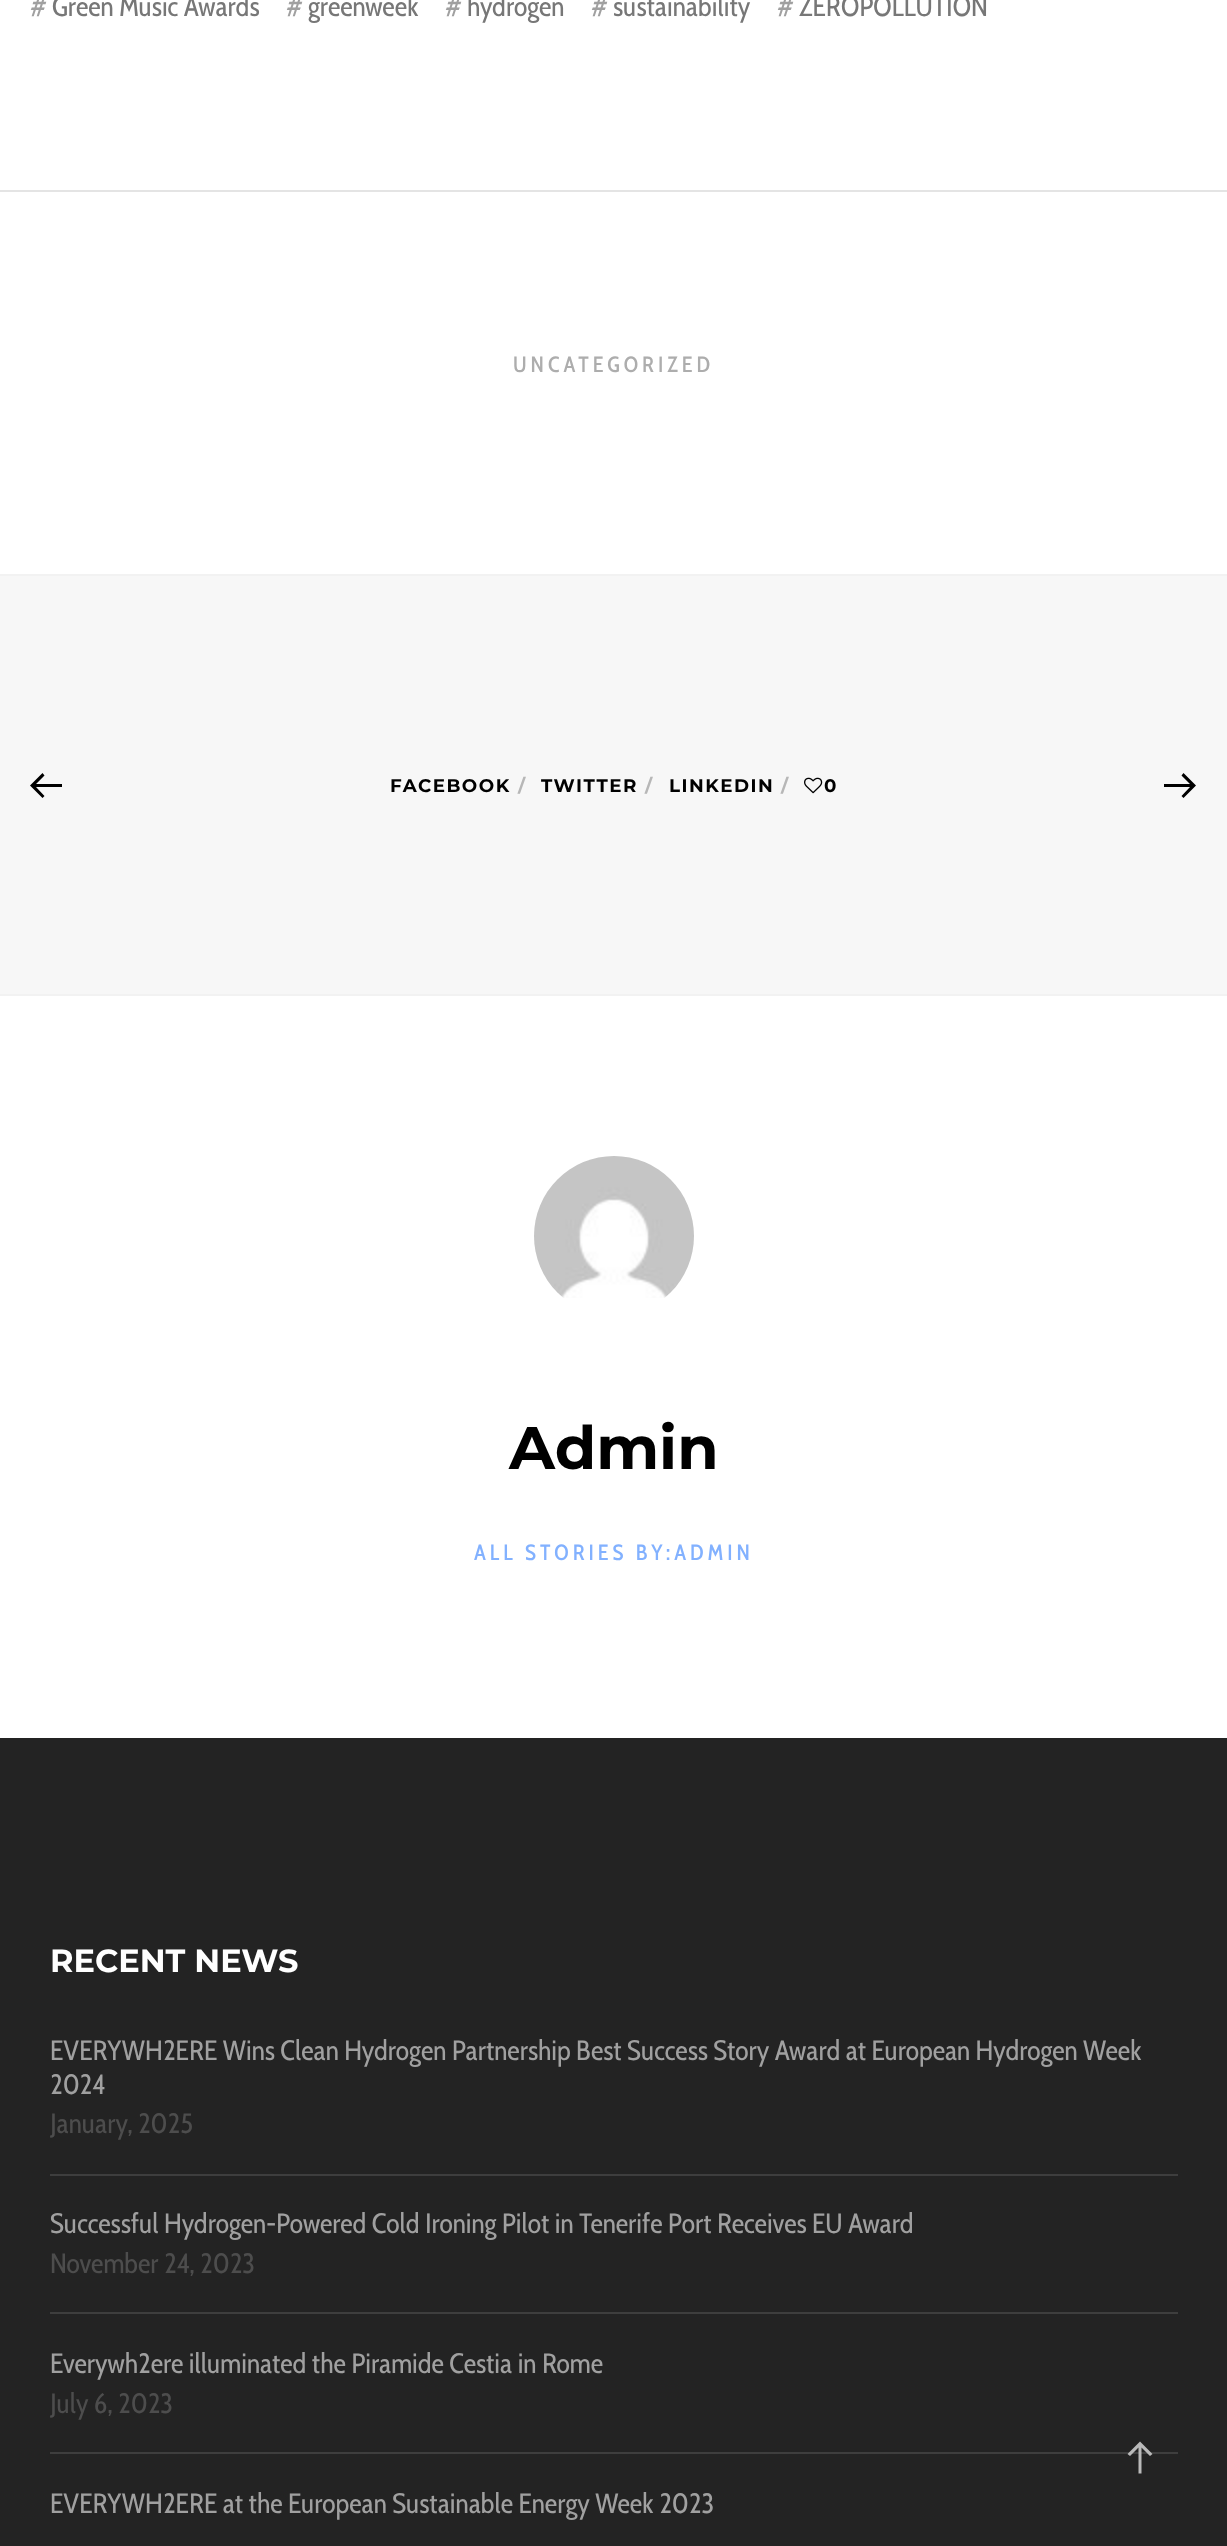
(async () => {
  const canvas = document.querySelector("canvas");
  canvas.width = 1227;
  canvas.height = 2546;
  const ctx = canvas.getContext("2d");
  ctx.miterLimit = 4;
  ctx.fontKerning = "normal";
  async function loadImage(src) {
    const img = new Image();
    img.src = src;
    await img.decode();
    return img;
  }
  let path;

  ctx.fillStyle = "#232323";
  ctx.fillRect(0, 0, 1227, 2546);
  for (const [x, y, w, h, color] of [
    [0, 0, 1227, 1738, "#ffffff"],
    [0, 190, 1227, 2, "#e4e4e4"],
    [0, 576, 1227, 418, "#f7f7f7"],
    [0, 574, 1227, 2, "#f2f2f2"],
    [0, 994, 1227, 2, "#f2f2f2"],
  ]) {
    ctx.fillStyle = color;
    ctx.fillRect(x, y, w, h);
  }
  ctx.fillStyle = "#000000";
  path = new Path2D("M62 784H36L44.5 775.5L42.5 773L30 785.5L42.5 798L44.5 796L36 787H62Z");
  ctx.fill(path);
  ctx.drawImage(await loadImage("img/1.png"), 804, 777, 19, 17);
  path = new Path2D("M1164 787H1190L1181.5 796L1183.5 798L1196 785.5L1183.5 773L1181.5 775.5L1190 784H1164Z");
  ctx.fill(path);
  ctx.drawImage(await loadImage("img/2.png"), 534, 1156, 160, 142);
  for (const [x, y, w, h, color] of [
    [50, 2174, 1128, 2, "#3e3e3e"],
    [50, 2312, 1128, 2, "#3e3e3e"],
    [50, 2452, 1128, 2, "#3e3e3e"],
  ]) {
    ctx.fillStyle = color;
    ctx.fillRect(x, y, w, h);
  }
  ctx.fillStyle = "#bababa";
  path = new Path2D("M1141.5 2473.5V2447.5L1150 2456L1152.5 2454L1140 2441.5L1127.5 2454L1130 2456L1138.5 2447.5V2473.5Z");
  ctx.fill(path);
  ctx.font = "28px Cabin Condensed";
  ctx.fillStyle = "#a0a0a0";
  ctx.fillText("#", 30, 16);
  ctx.fillStyle = "#777777";
  ctx.fillText("Green Music Awards", 52, 16);
  ctx.fillStyle = "#a0a0a0";
  ctx.fillText("#", 286, 16);
  ctx.fillStyle = "#777777";
  ctx.fillText("greenweek", 308, 16);
  ctx.fillStyle = "#a0a0a0";
  ctx.fillText("#", 445, 16);
  ctx.fillStyle = "#777777";
  ctx.fillText("hydrogen", 467, 16);
  ctx.fillStyle = "#a0a0a0";
  ctx.fillText("#", 591, 16);
  ctx.fillStyle = "#777777";
  ctx.fillText("sustainability", 613, 16);
  ctx.fillStyle = "#a0a0a0";
  ctx.fillText("#", 777, 16);
  ctx.fillStyle = "#777777";
  ctx.fillText("ZEROPOLLUTION", 799, 16);
  ctx.letterSpacing = "4px";
  ctx.font = "500 22px Cabin Condensed";
  ctx.fillStyle = "#adadad";
  ctx.fillText("UNCATEGORIZED", 513, 372);
  ctx.letterSpacing = "1.5px";
  ctx.font = "100 18.25px Montserrat";
  ctx.fillStyle = "#000000";
  ctx.fillText("FACEBOOK", 390, 792);
  ctx.fillStyle = "#b7b7b7";
  ctx.fillText("/", 518, 792);
  ctx.fillStyle = "#000000";
  ctx.fillText("TWITTER", 541, 792);
  ctx.fillStyle = "#b7b7b7";
  ctx.fillText("/", 645, 792);
  ctx.fillStyle = "#000000";
  ctx.fillText("LINKEDIN", 669, 792);
  ctx.fillStyle = "#b7b7b7";
  ctx.fillText("/", 781, 792);
  ctx.fillStyle = "#000000";
  ctx.fillText("0", 824, 792);
  ctx.letterSpacing = "0px";
  ctx.font = "100 60px Montserrat";
  ctx.fillText("Admin", 509, 1469);
  ctx.letterSpacing = "4px";
  ctx.font = "500 22px Cabin Condensed";
  ctx.fillStyle = "#82b1ff";
  ctx.fillText("ALL STORIES BY:ADMIN", 474, 1560);
  ctx.letterSpacing = "0px";
  ctx.font = "100 32px Montserrat";
  ctx.fillStyle = "#ffffff";
  ctx.fillText("RECENT NEWS", 50, 1972);
  ctx.font = "28px Cabin Condensed";
  ctx.fillStyle = "#a0a0a0";
  ctx.fillText("EVERYWH2ERE Wins Clean Hydrogen Partnership Best Success Story Award at European Hydrogen Week", 50, 2060);
  ctx.fillText("2024", 50, 2094);
  ctx.fillStyle = "#4d4d4d";
  ctx.fillText("January, 2025", 50, 2133);
  ctx.fillStyle = "#a0a0a0";
  ctx.fillText("Successful Hydrogen-Powered Cold Ironing Pilot in Tenerife Port Receives EU Award", 50, 2233);
  ctx.fillStyle = "#4d4d4d";
  ctx.fillText("November 24, 2023", 50, 2273);
  ctx.fillStyle = "#a0a0a0";
  ctx.fillText("Everywh2ere illuminated the Piramide Cestia in Rome", 50, 2373);
  ctx.fillStyle = "#4d4d4d";
  ctx.fillText("July 6, 2023", 50, 2413);
  ctx.fillStyle = "#a0a0a0";
  ctx.fillText("EVERYWH2ERE at the European Sustainable Energy Week 2023", 50, 2513);
})();
